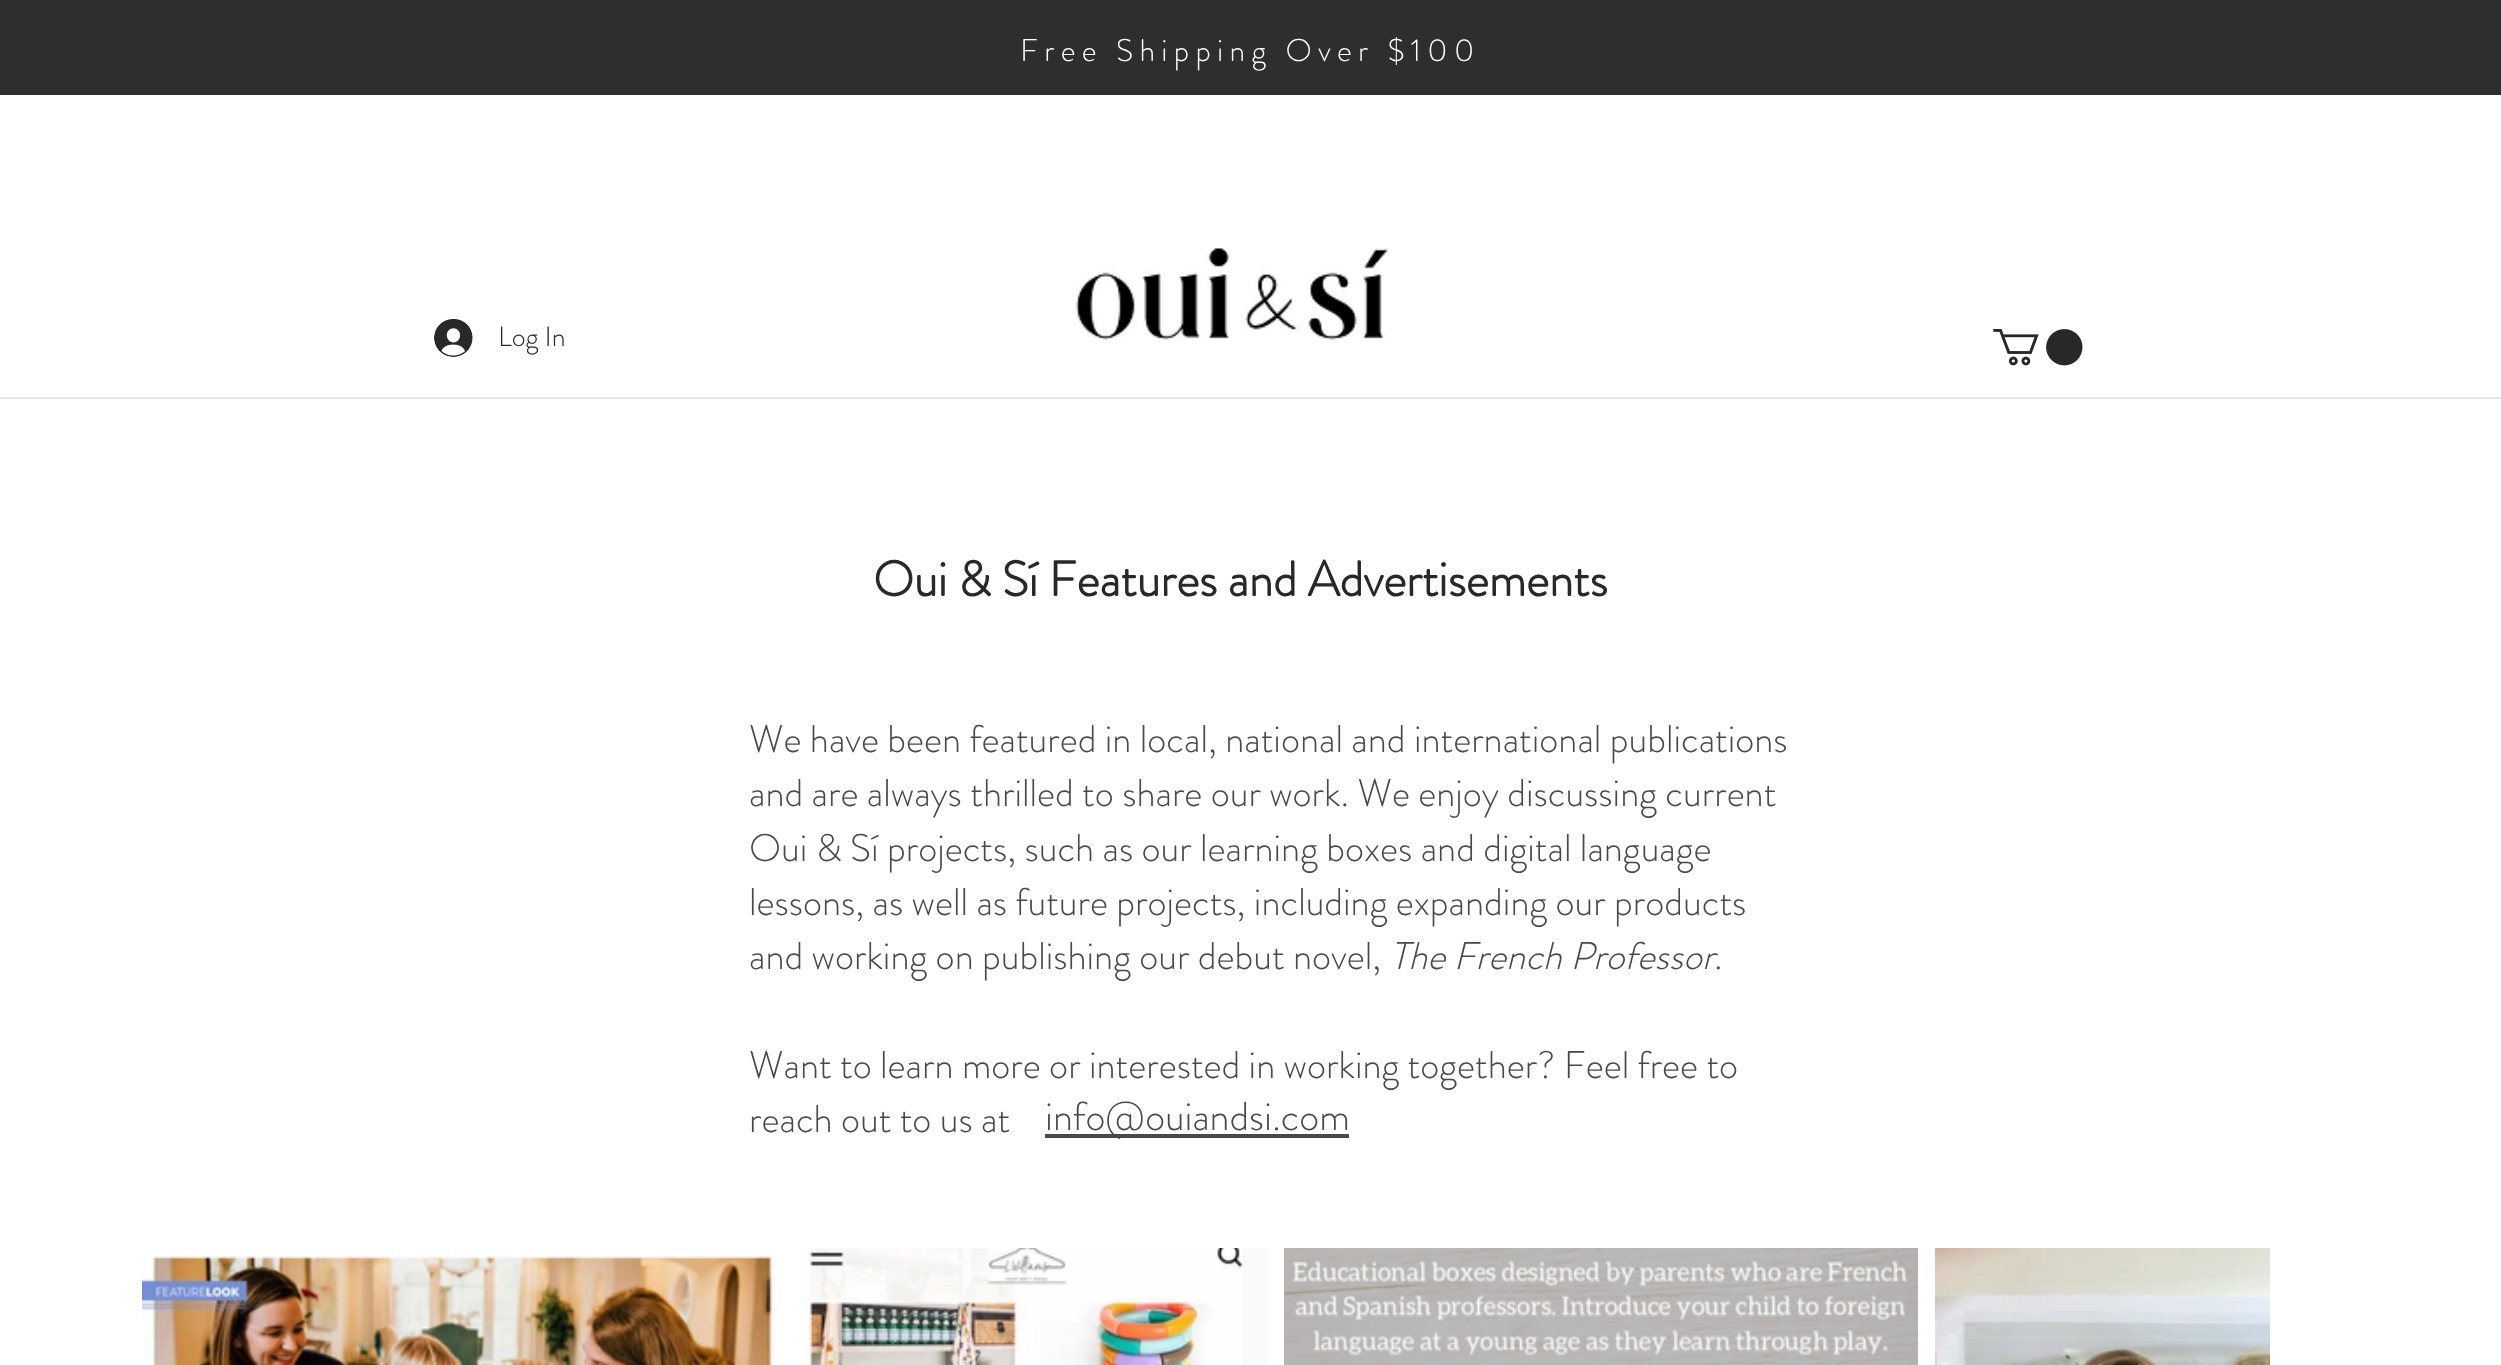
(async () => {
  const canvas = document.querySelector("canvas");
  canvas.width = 2501;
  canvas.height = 1365;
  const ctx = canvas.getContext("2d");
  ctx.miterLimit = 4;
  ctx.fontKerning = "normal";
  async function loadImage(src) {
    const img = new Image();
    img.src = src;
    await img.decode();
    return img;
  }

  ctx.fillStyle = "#ffffff";
  ctx.fillRect(0, 0, 2501, 1365);
  ctx.fillStyle = "#2e2e2e";
  ctx.fillRect(0, 0, 2501, 95);
  ctx.drawImage(await loadImage("img/1.png"), 434, 319, 39, 38);
  ctx.drawImage(await loadImage("img/2.png"), 1075, 248, 314, 92);
  ctx.drawImage(await loadImage("img/3.png"), 1993, 329, 90, 37);
  ctx.fillStyle = "#e7e7e7";
  ctx.fillRect(0, 397, 2501, 2);
  ctx.fillStyle = "#494949";
  ctx.fillRect(1045, 1134, 304, 4);
  ctx.drawImage(await loadImage("img/4.png"), 142, 1248, 644, 117);
  ctx.fillStyle = "#fafafa";
  ctx.fillRect(1243, 1248, 24, 117);
  ctx.drawImage(await loadImage("img/5.png"), 803, 1248, 440, 117);
  ctx.drawImage(await loadImage("img/6.png"), 1284, 1248, 634, 117);
  ctx.drawImage(await loadImage("img/7.png"), 1935, 1248, 335, 117);
  ctx.letterSpacing = "6.3px";
  ctx.font = "300 31.5px 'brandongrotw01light'";
  ctx.fillStyle = "#ffffff";
  ctx.fillText("Free Shipping Over $100", 1020, 61);
  ctx.letterSpacing = "0px";
  ctx.font = "300 28px 'brandongrotw01light'";
  ctx.fillStyle = "#282828";
  ctx.fillText("Log In", 498, 346);
  ctx.font = "bold 49px 'brandongrotw01light'";
  ctx.fillText("Oui & Sí Features and Advertisements", 873, 596);
  ctx.font = "300 38.5px 'brandongrotw01light'";
  ctx.fillStyle = "#494949";
  for (const [text, x, y] of [
    ["We have been featured in local, national and international publications", 749, 752],
    ["and are always thrilled to share our work. We enjoy discussing current", 749, 806],
    ["Oui & Sí projects, such as our learning boxes and digital language", 749, 861],
    ["lessons, as well as future projects, including expanding our products", 749, 915],
    ["and working on publishing our debut novel,", 749, 969],
  ]) {
    ctx.fillText(text, x, y);
  }
  ctx.font = "italic 300 38.5px 'brandongrotw01light'";
  ctx.fillText("The French Professor", 1390, 969);
  ctx.font = "300 38.5px 'brandongrotw01light'";
  for (const [text, x, y] of [
    [".", 1714, 969],
    ["Want to learn more or interested in working together? Feel free to", 749, 1078],
    ["reach out to us at", 749, 1132],
  ]) {
    ctx.fillText(text, x, y);
  }
  ctx.font = "300 40.25px 'brandongrotw01light'";
  ctx.fillText("info@ouiandsi.com", 1045, 1130);
})();
